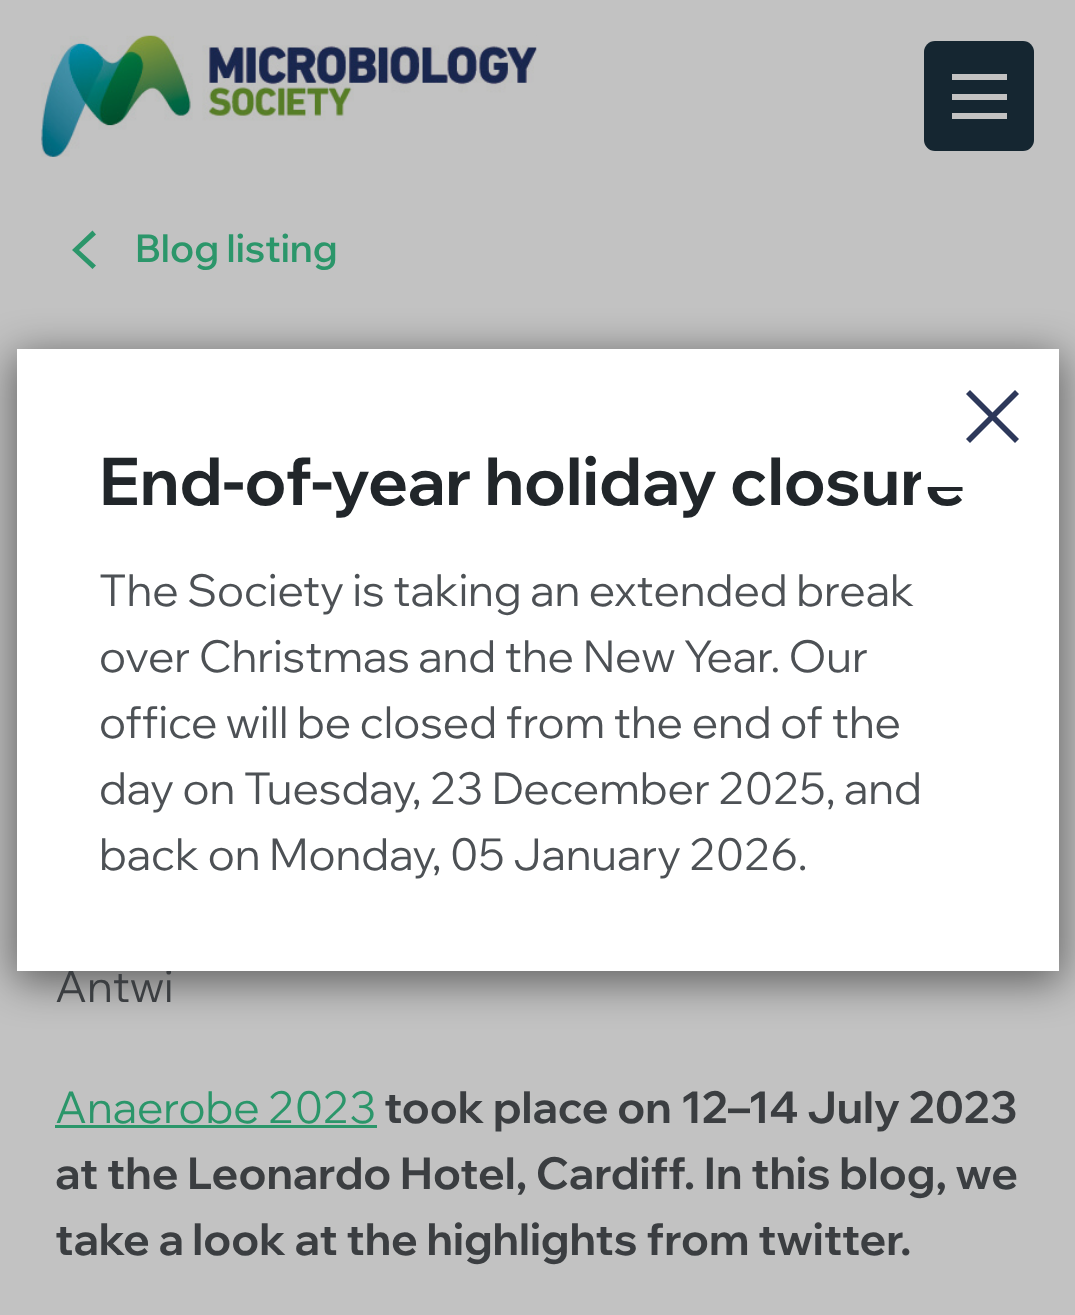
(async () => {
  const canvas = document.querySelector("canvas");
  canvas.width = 1075;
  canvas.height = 1315;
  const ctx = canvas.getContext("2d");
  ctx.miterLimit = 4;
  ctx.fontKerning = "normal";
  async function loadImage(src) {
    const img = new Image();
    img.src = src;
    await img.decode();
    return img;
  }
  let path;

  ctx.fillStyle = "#c2c2c2";
  ctx.fillRect(0, 0, 1075, 1315);
  ctx.drawImage(await loadImage("img/1.png"), 41, 35, 496, 122);
  ctx.fillStyle = "#152631";
  ctx.beginPath();
  ctx.roundRect(924, 41, 110, 110, 11);
  ctx.fill();
  for (const [x, y, w, h, color] of [
    [952, 94, 55, 6, "#c2c2c2"],
    [952, 74, 55, 6, "#c2c2c2"],
    [952, 113, 55, 6, "#c2c2c2"],
  ]) {
    ctx.fillStyle = color;
    ctx.fillRect(x, y, w, h);
  }
  ctx.fillStyle = "#2b966a";
  path = new Path2D("M92.5 269L96 265.5L79 250L96 234.5L92.5 230.5L72 250Z");
  ctx.fill(path);
  ctx.fillRect(55, 1125, 322, 3);
  ctx.fillStyle = "rgba(0, 0, 0, 0.5)";
  ctx.filter = "blur(20.5px)";
  ctx.beginPath();
  ctx.rect(14, 355, 1048, 627);
  ctx.fill();
  ctx.filter = "none";
  ctx.font = "600 38.5px Wix Madefor Display";
  ctx.fillStyle = "#2b966a";
  ctx.fillText("Blog listing", 135, 262);
  ctx.font = "44px Wix Madefor Display";
  ctx.fillStyle = "#3b3e41";
  ctx.fillText("Antwi", 55, 1002);
  ctx.fillStyle = "#2b966a";
  ctx.fillText("Anaerobe 2023", 55, 1123);
  ctx.font = "bold 44px Wix Madefor Display";
  ctx.fillStyle = "#3b3e41";
  for (const [text, x, y] of [
    ["took place on 12–14 July 2023", 384, 1123],
    ["at the Leonardo Hotel, Cardiff. In this blog, we", 55, 1189],
    ["take a look at the highlights from twitter.", 55, 1255],
  ]) {
    ctx.fillText(text, x, y);
  }
  ctx.fillStyle = "#ffffff";
  ctx.fillRect(17, 349, 1042, 622);
  ctx.fillStyle = "#2d385a";
  path = new Path2D("M1019 439L1015 443L966 394L970 390Z");
  ctx.fill(path);
  path = new Path2D("M1015 390L1019 394L970 443L966 439Z");
  ctx.fill(path);
  ctx.font = "bold 66px Wix Madefor Display";
  ctx.fillStyle = "#21262a";
  ctx.fillText("End-of-year holiday closure", 99, 505);
  ctx.fillStyle = "#ffffff";
  ctx.fillRect(921, 470, 42, 17);
  ctx.font = "44px Wix Madefor Display";
  ctx.fillStyle = "#4d5155";
  for (const [text, x, y] of [
    ["The Society is taking an extended break", 99, 606],
    ["over Christmas and the New Year. Our", 99, 672],
    ["office will be closed from the end of the", 99, 738],
    ["day on Tuesday, 23 December 2025, and", 99, 804],
    ["back on Monday, 05 January 2026.", 99, 870],
  ]) {
    ctx.fillText(text, x, y);
  }
})();
